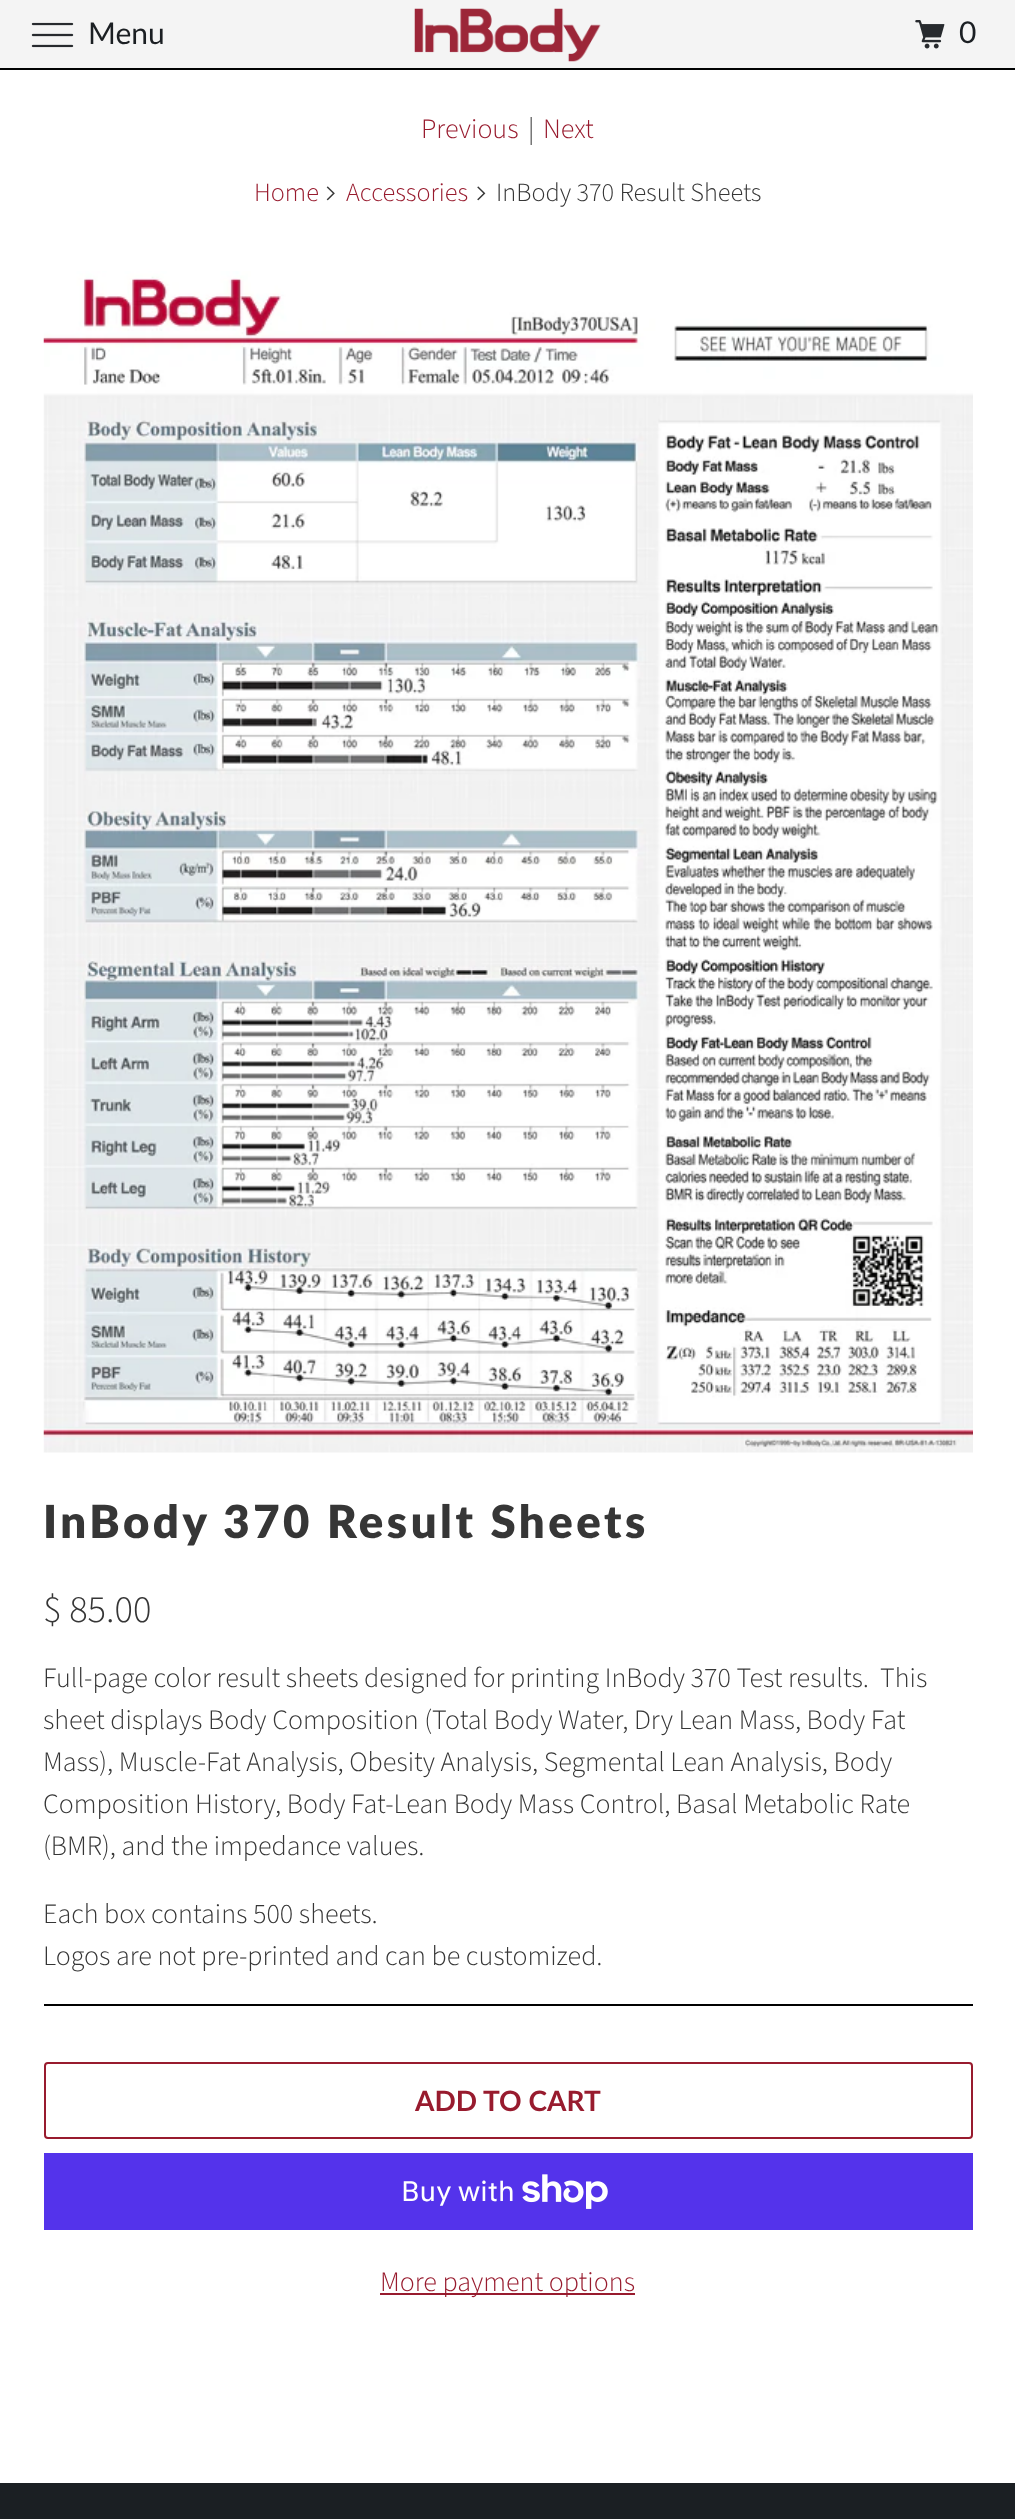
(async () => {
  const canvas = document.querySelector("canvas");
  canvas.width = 1015;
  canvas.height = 2519;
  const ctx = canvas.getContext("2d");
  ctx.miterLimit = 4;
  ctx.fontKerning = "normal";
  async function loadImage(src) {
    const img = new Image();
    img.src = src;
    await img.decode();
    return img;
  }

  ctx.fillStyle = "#ffffff";
  ctx.fillRect(0, 0, 1015, 2519);
  ctx.fillStyle = "#f4f4f4";
  ctx.fillRect(0, 0, 1015, 68);
  ctx.fillStyle = "#010202";
  ctx.fillRect(0, 68, 1015, 2);
  ctx.drawImage(await loadImage("img/1.png"), 31, 22, 43, 26);
  ctx.drawImage(await loadImage("img/2.png"), 414, 8, 187, 54);
  ctx.drawImage(await loadImage("img/3.png"), 915, 20, 30, 29);
  ctx.drawImage(await loadImage("img/4.png"), 326, 186, 9, 15);
  ctx.drawImage(await loadImage("img/5.png"), 477, 186, 9, 15);
  ctx.drawImage(await loadImage("img/6.png"), 43, 271, 930, 1182);
  ctx.fillStyle = "#000000";
  ctx.fillRect(44, 2004, 929, 2);
  ctx.beginPath();
  ctx.roundRect(45, 2063, 927, 75, 3);
  ctx.strokeStyle = "#981b2e";
  ctx.lineWidth = 2;
  ctx.stroke();
  ctx.fillStyle = "#5433eb";
  ctx.fillRect(44, 2153, 929, 77);
  ctx.drawImage(await loadImage("img/7.png"), 522, 2174, 86, 35);
  ctx.fillStyle = "#981b2e";
  ctx.fillRect(380, 2293, 255, 2);
  ctx.fillStyle = "#1b1f23";
  ctx.fillRect(0, 2483, 1015, 36);
  ctx.font = "30px Lato";
  ctx.fillText("Menu", 88, 44);
  ctx.fillText("0", 959, 43);
  ctx.font = "300 28px Source Sans Pro";
  ctx.fillStyle = "#981b2e";
  ctx.fillText("Previous", 421, 138);
  ctx.fillStyle = "#363636";
  ctx.fillText("|", 528, 138);
  ctx.fillStyle = "#981b2e";
  ctx.fillText("Next", 543, 138);
  ctx.font = "300 26.25px Source Sans Pro";
  ctx.fillText("Home", 254, 201);
  ctx.fillText("Accessories", 346, 201);
  ctx.fillStyle = "#363636";
  ctx.fillText("InBody 370 Result Sheets", 496, 201);
  ctx.letterSpacing = "3.5px";
  ctx.font = "800 45.5px Lato";
  ctx.fillText("InBody 370 Result Sheets", 43, 1538);
  ctx.letterSpacing = "0px";
  ctx.font = "300 38.5px Source Sans Pro";
  ctx.fillText("$ 85.00", 43, 1622);
  ctx.font = "300 28px Source Sans Pro";
  for (const [text, x, y] of [
    ["Full-page color result sheets designed for printing InBody 370 Test results.  This", 43, 1687],
    ["sheet displays Body Composition (Total Body Water, Dry Lean Mass, Body Fat", 43, 1729],
    ["Mass), Muscle-Fat Analysis, Obesity Analysis, Segmental Lean Analysis, Body", 43, 1771],
    ["Composition History, Body Fat-Lean Body Mass Control, Basal Metabolic Rate", 43, 1813],
    ["(BMR), and the impedance values.", 43, 1855],
    ["Each box contains 500 sheets.", 43, 1923],
    ["Logos are not pre-printed and can be customized.", 43, 1965],
  ]) {
    ctx.fillText(text, x, y);
  }
  ctx.font = "bold 28px Lato";
  ctx.fillStyle = "#981b2e";
  ctx.fillText("ADD TO CART", 415, 2111);
  ctx.font = "28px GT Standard";
  ctx.fillStyle = "#ffffff";
  ctx.fillText("Buy with", 401, 2201);
  ctx.font = "300 28px Source Sans Pro";
  ctx.fillStyle = "#981b2e";
  ctx.fillText("More payment options", 380, 2291);
})();
